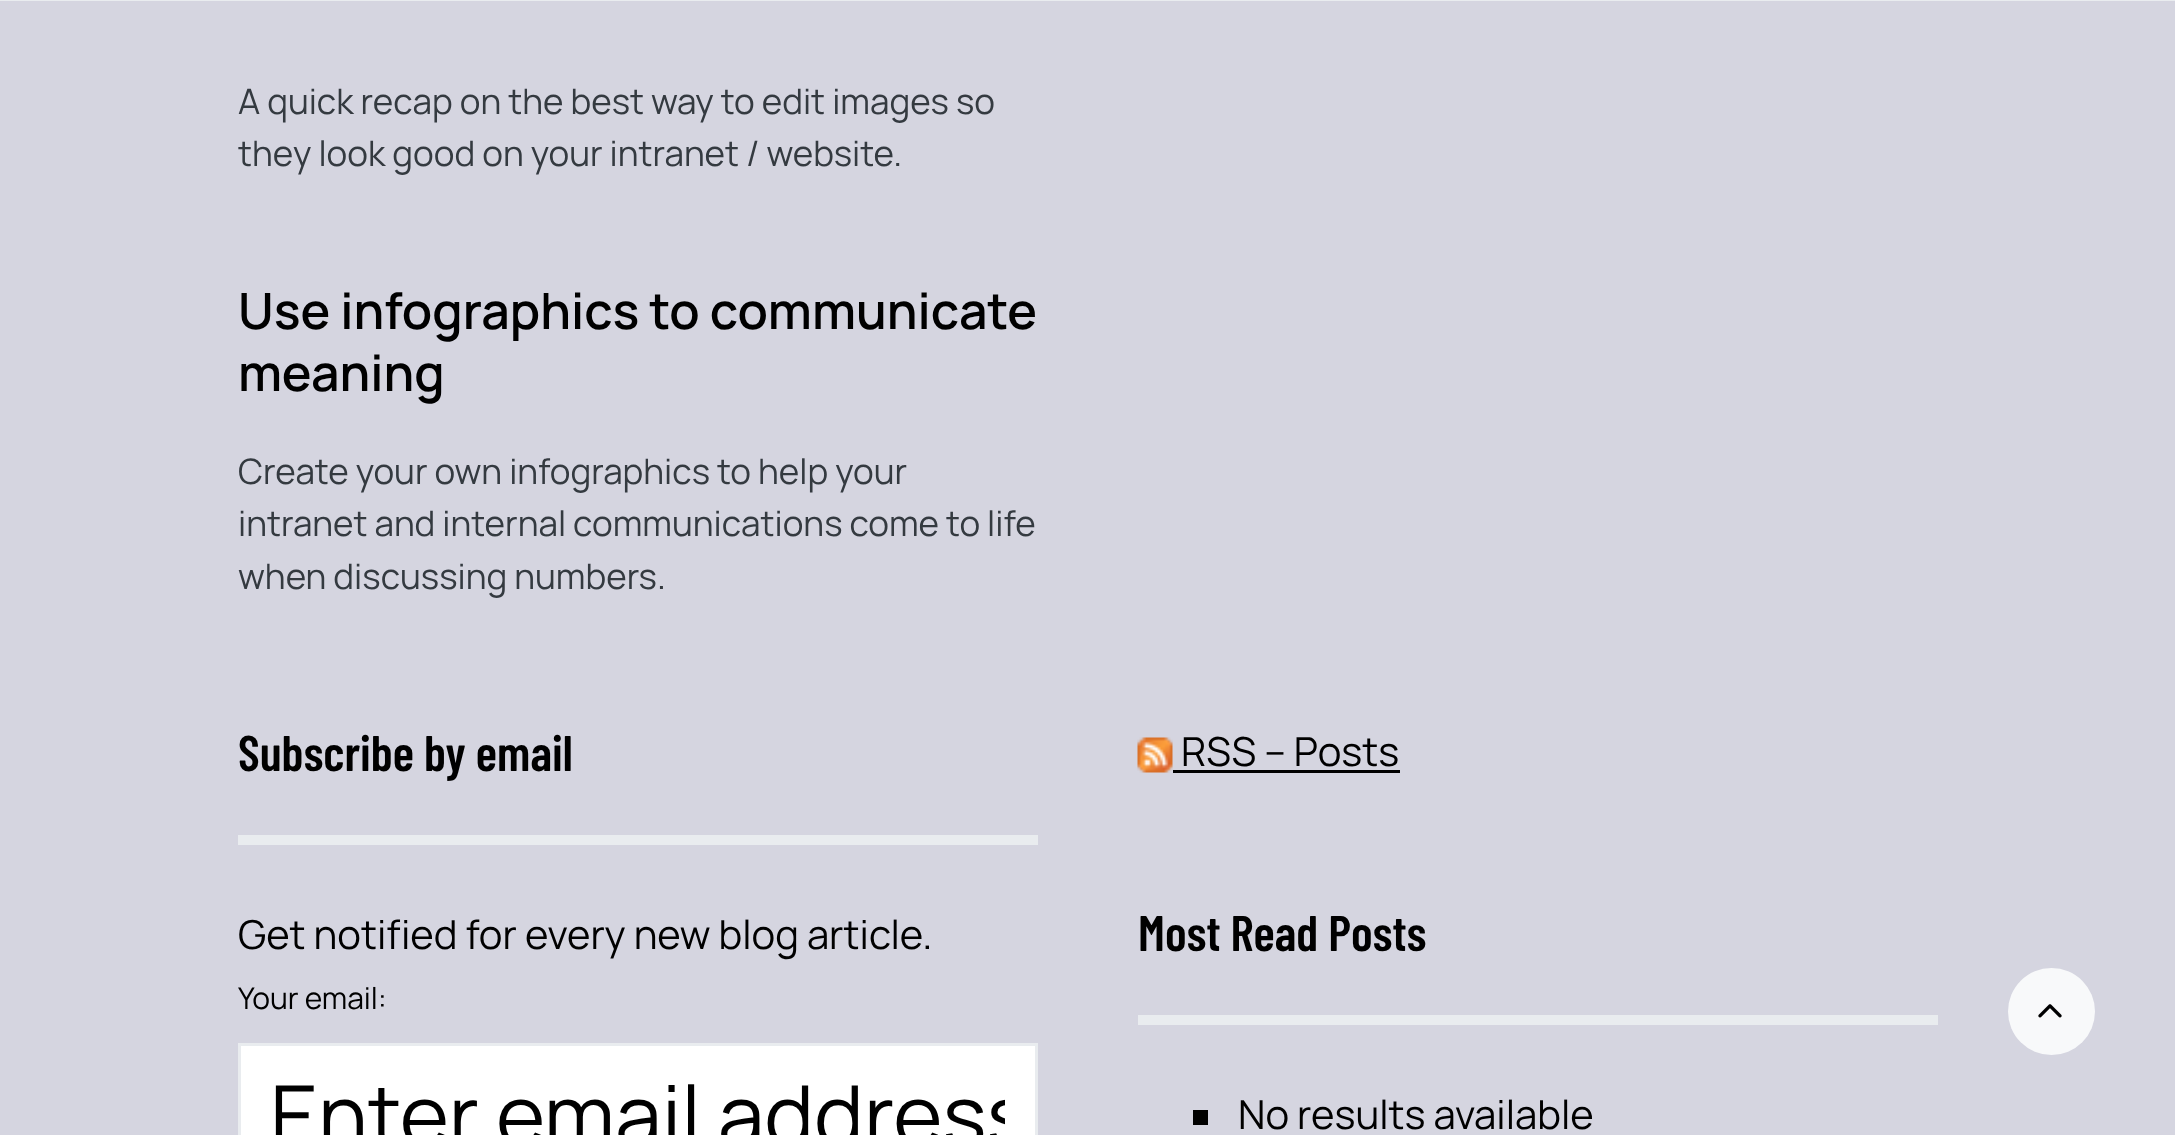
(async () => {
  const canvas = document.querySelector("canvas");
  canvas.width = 2175;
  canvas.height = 1135;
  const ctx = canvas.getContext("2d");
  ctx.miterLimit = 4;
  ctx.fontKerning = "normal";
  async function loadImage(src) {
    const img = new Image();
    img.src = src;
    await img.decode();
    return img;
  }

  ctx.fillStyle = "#d5d5e0";
  ctx.fillRect(0, 0, 2175, 1135);
  ctx.fillStyle = "#e9ecef";
  ctx.fillRect(0, 0, 2175, 1);
  ctx.fillRect(238, 835, 800, 10);
  ctx.fillStyle = "#ffffff";
  ctx.beginPath();
  ctx.rect(239.5, 1044.5, 797, 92);
  ctx.fill();
  ctx.strokeStyle = "#e9ecef";
  ctx.lineWidth = 3;
  ctx.stroke();
  ctx.drawImage(await loadImage("img/1.png"), 1137, 737, 36, 36);
  for (const [x, y, w, h, color] of [
    [1173, 770, 227, 3, "#000000"],
    [1138, 1015, 800, 10, "#e9ecef"],
    [1193, 1110, 15, 15, "#000000"],
  ]) {
    ctx.fillStyle = color;
    ctx.fillRect(x, y, w, h);
  }
  ctx.fillStyle = "#f8f9fa";
  ctx.beginPath();
  ctx.arc(2051.5, 1011.5, 43.5, 0, Math.PI * 2);
  ctx.fill();
  ctx.drawImage(await loadImage("img/2.png"), 2038, 1004, 24, 14);
  ctx.font = "35px Manrope";
  ctx.fillStyle = "#343a40";
  ctx.fillText("A quick recap on the best way to edit images so", 238, 114);
  ctx.fillText("they look good on your intranet / website.", 238, 166);
  ctx.font = "600 50px Manrope";
  ctx.fillStyle = "#000000";
  ctx.fillText("Use infographics to communicate", 238, 329);
  ctx.fillText("meaning", 238, 391);
  ctx.font = "35px Manrope";
  ctx.fillStyle = "#343a40";
  for (const [text, x, y] of [
    ["Create your own infographics to help your", 238, 484],
    ["intranet and internal communications come to life", 238, 536],
    ["when discussing numbers.", 238, 589],
  ]) {
    ctx.fillText(text, x, y);
  }
  ctx.font = "600 50px Barlow Condensed";
  ctx.fillStyle = "#000000";
  ctx.fillText("Subscribe by email", 238, 771);
  ctx.font = "40px Manrope";
  ctx.fillText("Get notified for every new blog article.", 238, 949);
  ctx.font = "30px Manrope";
  ctx.fillText("Your email:", 238, 1009);
  ctx.save();
  ctx.beginPath();
  ctx.rect(270, 1058, 735, 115);
  ctx.clip();
  ctx.font = "84px Manrope";
  ctx.fillText("Enter email address", 270, 1146);
  ctx.restore();
  ctx.font = "40px Manrope";
  ctx.fillText("RSS – Posts", 1181, 766);
  ctx.font = "600 50px Barlow Condensed";
  ctx.fillText("Most Read Posts", 1138, 951);
  ctx.font = "40px Manrope";
  ctx.fillText("No results available", 1238, 1129);
})();
